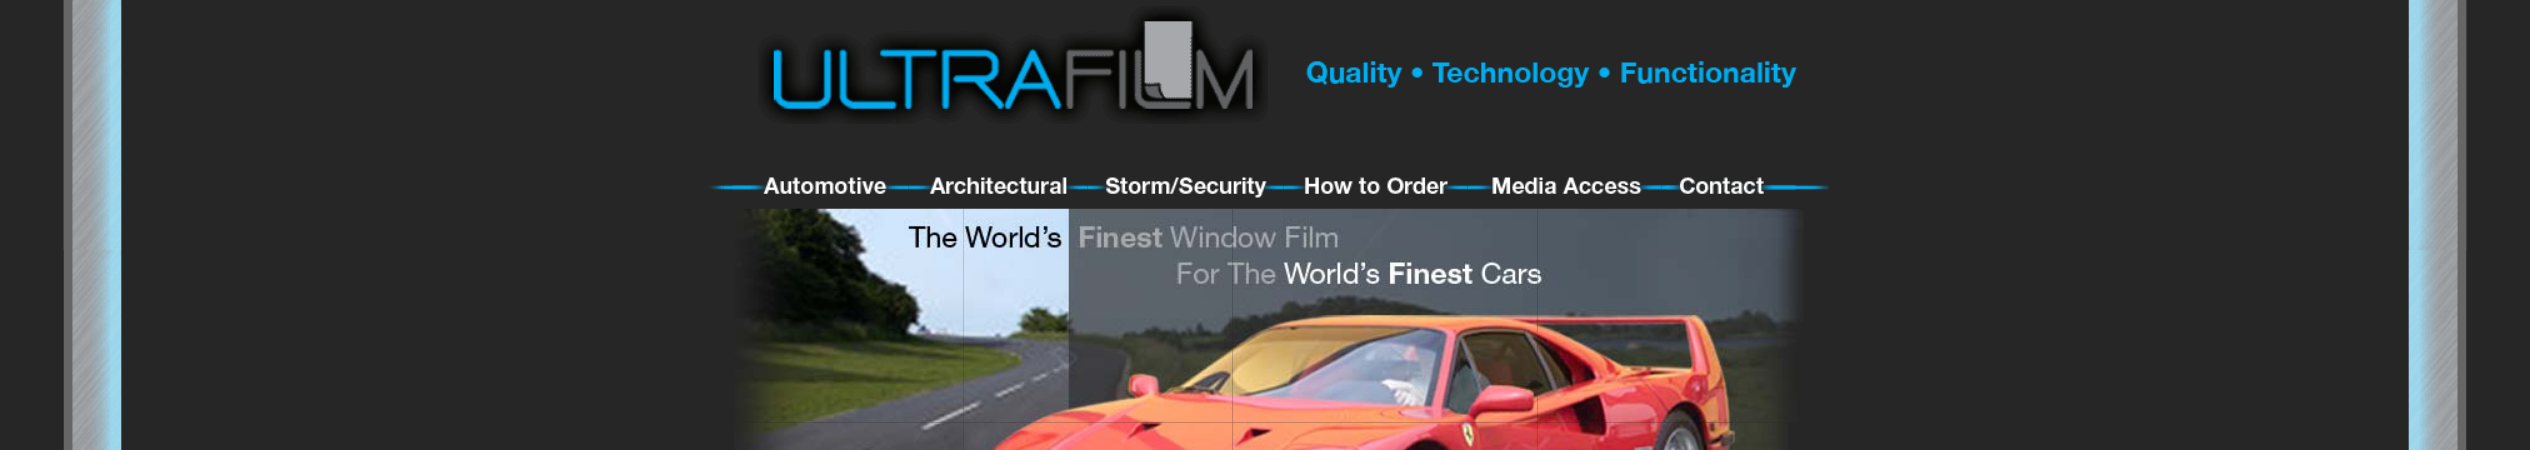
(async () => {
  const canvas = document.querySelector("canvas");
  canvas.width = 2530;
  canvas.height = 450;
  const ctx = canvas.getContext("2d");
  ctx.miterLimit = 4;
  ctx.fontKerning = "normal";
  async function loadImage(src) {
    const img = new Image();
    img.src = src;
    await img.decode();
    return img;
  }

  ctx.fillStyle = "#262626";
  ctx.fillRect(0, 0, 2530, 450);
  ctx.drawImage(await loadImage("img/1.png"), 63, 0, 59, 450);
  ctx.fillStyle = "#424242";
  ctx.fillRect(63, 0, 1, 250);
  ctx.drawImage(await loadImage("img/2.png"), 758, 6, 510, 118);
  ctx.drawImage(await loadImage("img/3.png"), 1306, 61, 492, 27);
  ctx.drawImage(await loadImage("img/4.png"), 704, 177, 205, 17);
  ctx.drawImage(await loadImage("img/5.png"), 908, 177, 180, 17);
  ctx.drawImage(await loadImage("img/6.png"), 1087, 177, 197, 21);
  ctx.drawImage(await loadImage("img/7.png"), 1283, 177, 185, 17);
  ctx.drawImage(await loadImage("img/8.png"), 1467, 177, 195, 17);
  ctx.drawImage(await loadImage("img/9.png"), 1661, 177, 168, 17);
  ctx.drawImage(await loadImage("img/10.png"), 735, 208, 229, 215);
  ctx.drawImage(await loadImage("img/11.png"), 963, 208, 270, 215);
  ctx.drawImage(await loadImage("img/12.png"), 1232, 208, 306, 215);
  ctx.drawImage(await loadImage("img/13.png"), 1537, 208, 267, 215);
  ctx.drawImage(await loadImage("img/14.png"), 734, 422, 230, 28);
  ctx.drawImage(await loadImage("img/15.png"), 963, 422, 270, 28);
  ctx.drawImage(await loadImage("img/16.png"), 1232, 422, 306, 28);
  ctx.drawImage(await loadImage("img/17.png"), 1537, 422, 251, 28);
  ctx.drawImage(await loadImage("img/18.png"), 2408, 0, 59, 450);
  ctx.drawImage(await loadImage("img/19.png"), 2408, 0, 59, 250);
})();
